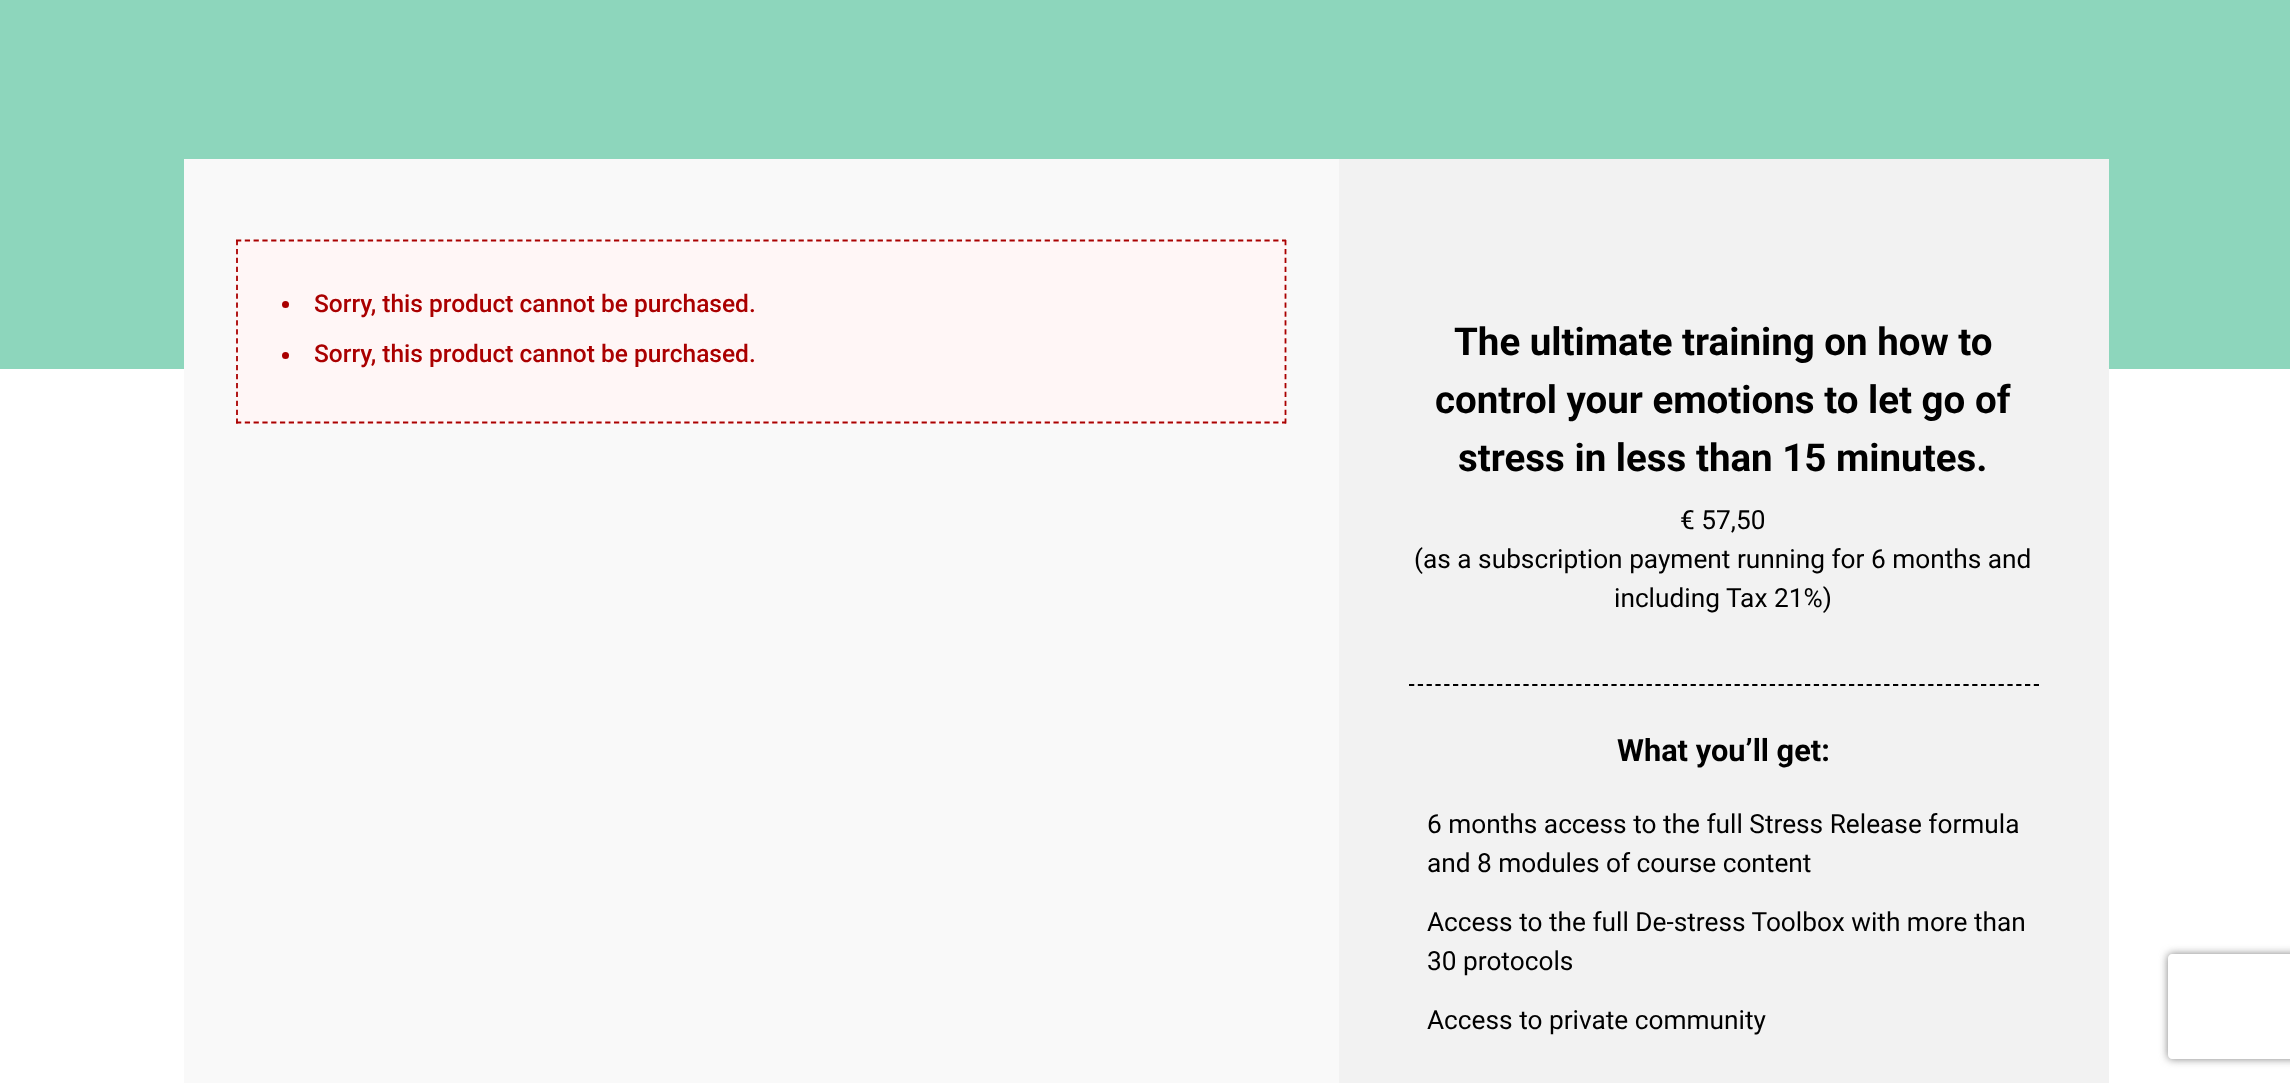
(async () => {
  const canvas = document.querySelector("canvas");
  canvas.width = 2290;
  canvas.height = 1083;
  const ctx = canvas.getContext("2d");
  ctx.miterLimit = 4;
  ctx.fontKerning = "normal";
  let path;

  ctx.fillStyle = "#ffffff";
  ctx.fillRect(0, 0, 2290, 1083);
  for (const [x, y, w, h, color] of [
    [0, 0, 2290, 369, "#8dd6bc"],
    [184, 159, 1155, 924, "#f9f9f9"],
    [236, 240, 1050, 184, "#fff6f6"],
  ]) {
    ctx.fillStyle = color;
    ctx.fillRect(x, y, w, h);
  }
  path = new Path2D("M236 240.5H1286");
  ctx.strokeStyle = "#aa0000";
  ctx.lineWidth = 1.8;
  ctx.setLineDash([5.25, 3.54]);
  ctx.stroke(path);
  path = new Path2D("M1285.5 240V423.5");
  ctx.setLineDash([5.25, 3.68]);
  ctx.stroke(path);
  path = new Path2D("M236 422.5H1286");
  ctx.setLineDash([5.25, 3.54]);
  ctx.stroke(path);
  path = new Path2D("M237 240V423.5");
  ctx.setLineDash([5.25, 3.68]);
  ctx.stroke(path);
  ctx.fillStyle = "#aa0000";
  ctx.beginPath();
  ctx.arc(285.5, 304.5, 3.5, 0, Math.PI * 2);
  ctx.fill();
  ctx.beginPath();
  ctx.arc(285.5, 355.5, 3.5, 0, Math.PI * 2);
  ctx.fill();
  ctx.fillStyle = "#f2f2f2";
  ctx.fillRect(1339, 159, 770, 924);
  path = new Path2D("M1409 685H2039");
  ctx.strokeStyle = "#000000";
  ctx.setLineDash([5.25, 3.55]);
  ctx.stroke(path);
  ctx.save();
  path = new Path2D("M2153 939H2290V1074H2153ZM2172 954H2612C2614 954 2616 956 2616 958V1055C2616 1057 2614 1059 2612 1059H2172C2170 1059 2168 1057 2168 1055V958C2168 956 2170 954 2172 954Z");
  ctx.clip(path, "evenodd");
  ctx.fillStyle = "#808080";
  ctx.filter = "blur(4.5px)";
  ctx.beginPath();
  ctx.roundRect(2168, 954, 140, 105, 4);
  ctx.fill();
  ctx.filter = "none";
  ctx.restore();
  ctx.font = "500 24.5px Roboto";
  ctx.fillStyle = "#aa0000";
  ctx.fillText("Sorry, this product cannot be purchased.", 314, 312);
  ctx.fillText("Sorry, this product cannot be purchased.", 314, 362);
  ctx.font = "bold 38.5px Roboto";
  ctx.fillStyle = "#000000";
  for (const [text, x, y] of [
    ["The ultimate training on how to", 1454, 355],
    ["control your emotions to let go of", 1435, 413],
    ["stress in less than 15 minutes.", 1458, 471],
  ]) {
    ctx.fillText(text, x, y);
  }
  ctx.font = "26.25px Roboto";
  for (const [text, x, y] of [
    ["€ 57,50", 1680, 529],
    ["(as a subscription payment running for 6 months and", 1414, 568],
    ["including Tax 21%)", 1614, 607],
  ]) {
    ctx.fillText(text, x, y);
  }
  ctx.font = "bold 30.75px Roboto";
  ctx.fillText("What you’ll get:", 1617, 761);
  ctx.font = "26.25px Roboto";
  for (const [text, x, y] of [
    ["6 months access to the full Stress Release formula", 1427, 833],
    ["and 8 modules of course content", 1427, 872],
    ["Access to the full De-stress Toolbox with more than", 1427, 931],
    ["30 protocols", 1427, 970],
    ["Access to private community", 1427, 1029],
  ]) {
    ctx.fillText(text, x, y);
  }
})();
